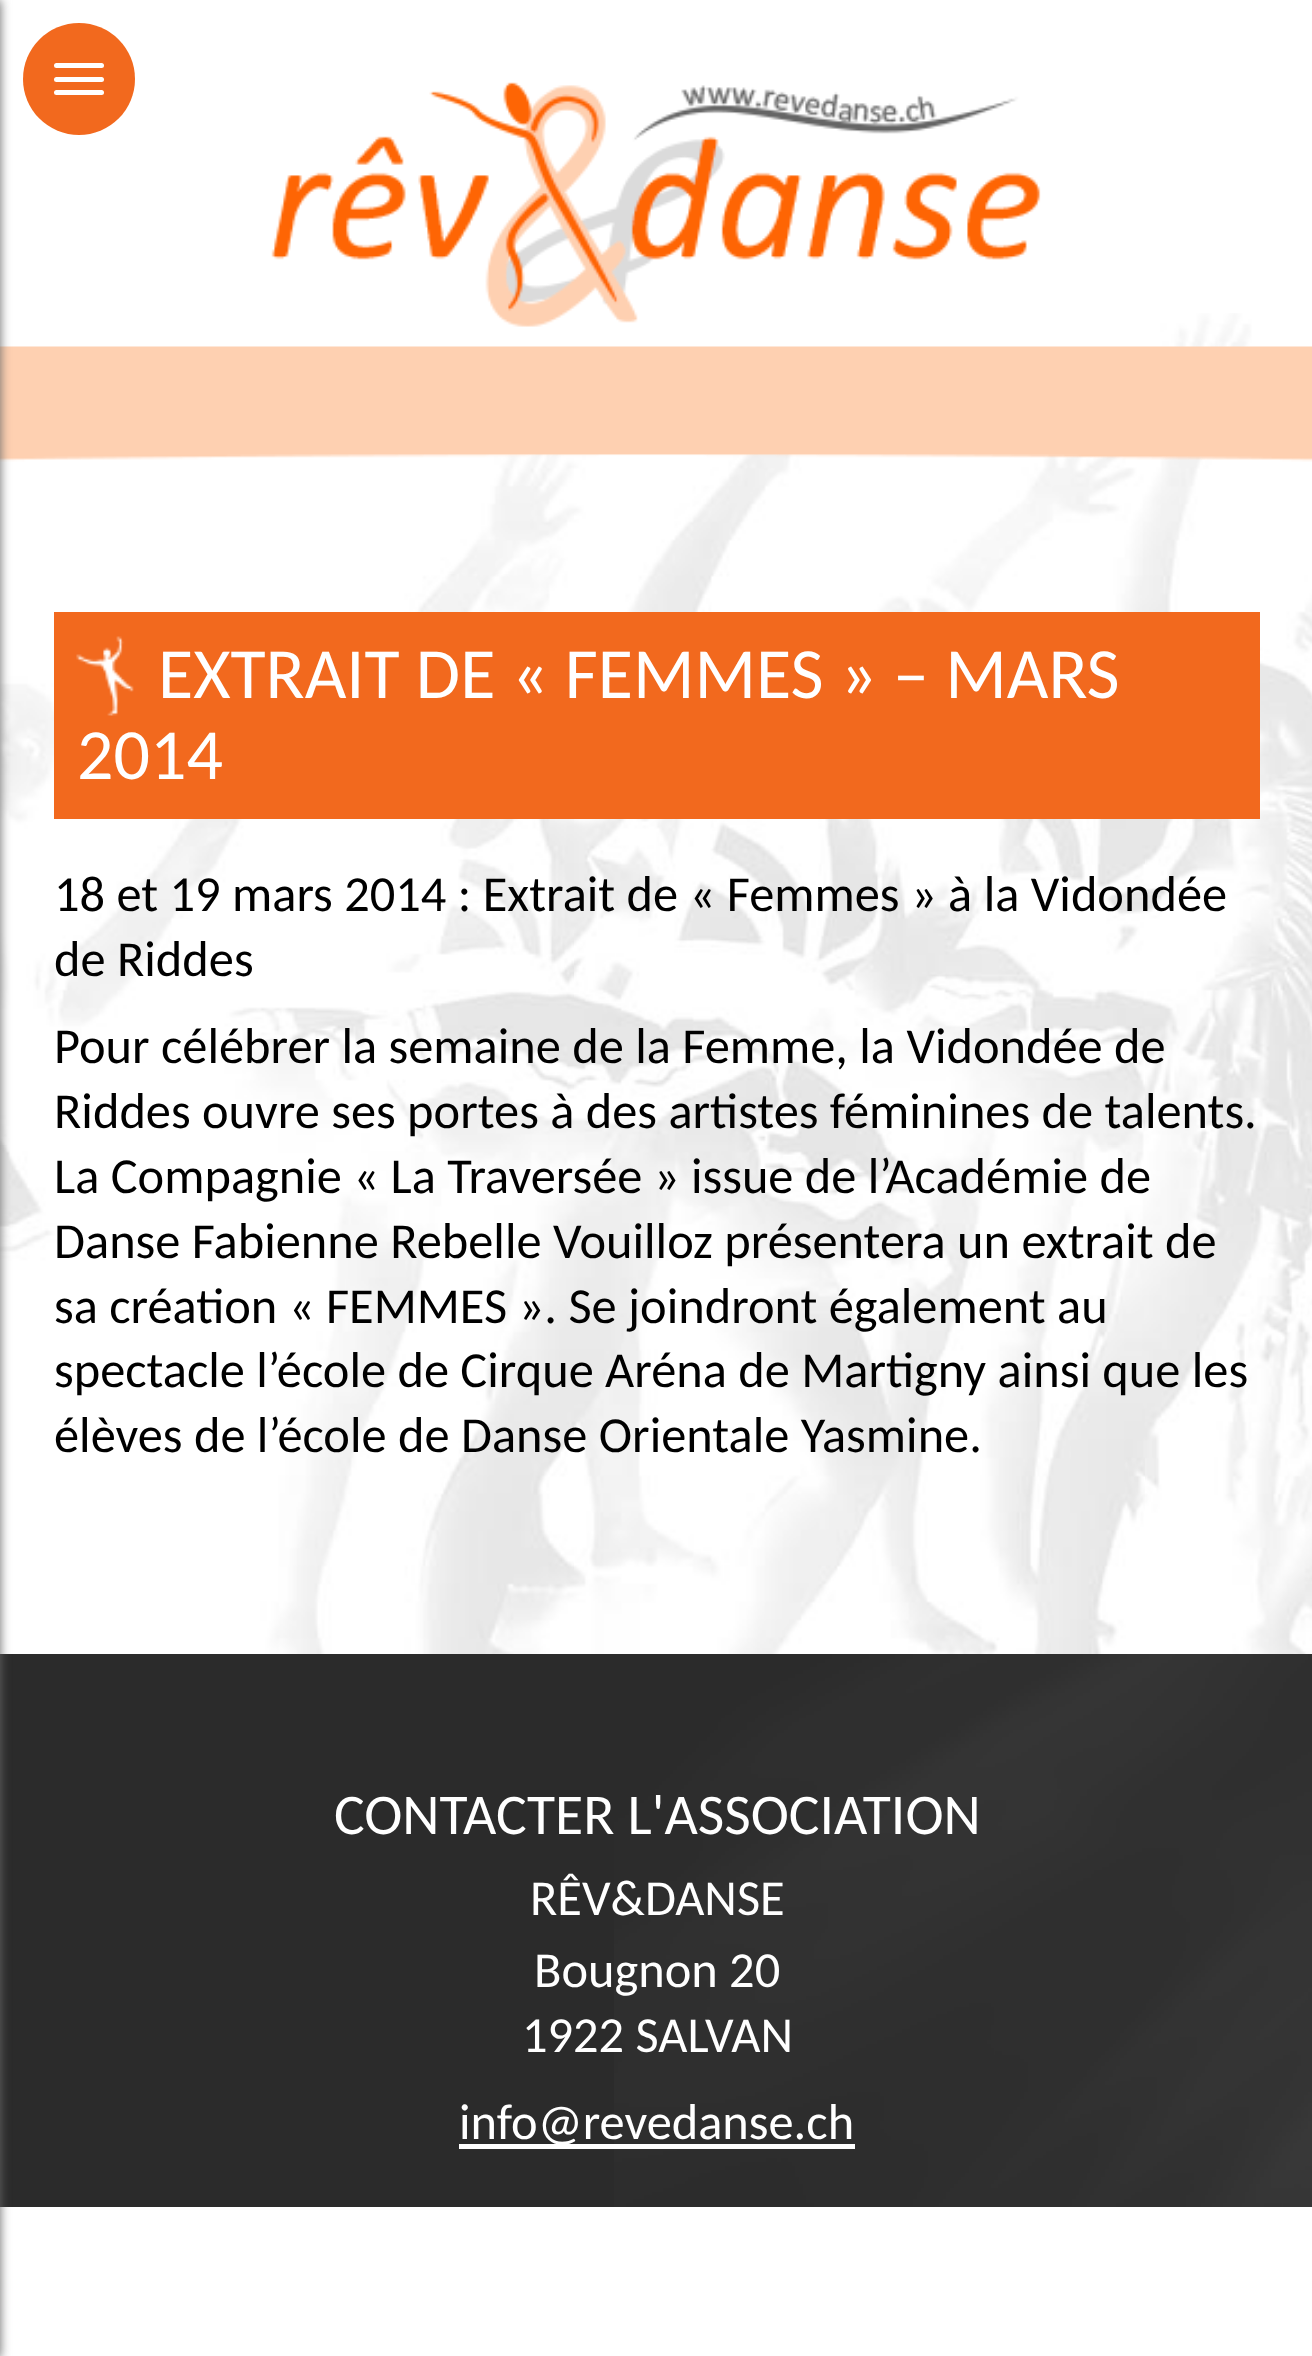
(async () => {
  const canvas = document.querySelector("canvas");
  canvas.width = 1312;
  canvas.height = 2356;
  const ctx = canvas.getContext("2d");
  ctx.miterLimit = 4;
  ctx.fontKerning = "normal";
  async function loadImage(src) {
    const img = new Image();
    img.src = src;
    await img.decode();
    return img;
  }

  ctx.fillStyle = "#ffffff";
  ctx.fillRect(0, 0, 1312, 2356);
  ctx.drawImage(await loadImage("img/1.png"), 0, 313, 1312, 1341);
  ctx.drawImage(await loadImage("img/3.png"), 0, 346, 1312, 116);
  ctx.fillStyle = "#2b2b2b";
  ctx.fillRect(0, 1654, 1312, 553);
  ctx.fillStyle = "#666666";
  ctx.filter = "blur(5.5px)";
  ctx.beginPath();
  ctx.rect(-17, 0, 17, 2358);
  ctx.fill();
  ctx.filter = "none";
  ctx.fillStyle = "#f2691e";
  ctx.beginPath();
  ctx.arc(79, 79, 56, 0, Math.PI * 2);
  ctx.fill();
  ctx.fillStyle = "#ffffff";
  ctx.beginPath();
  ctx.roundRect(54, 63, 50, 5, 2.5);
  ctx.fill();
  ctx.beginPath();
  ctx.roundRect(54, 77, 50, 5, 2.5);
  ctx.fill();
  ctx.beginPath();
  ctx.roundRect(54, 90, 50, 5, 2.5);
  ctx.fill();
  ctx.drawImage(await loadImage("img/2.png"), 271, 82, 770, 245);
  ctx.fillStyle = "#f2691e";
  ctx.fillRect(54, 612, 1206, 207);
  ctx.drawImage(await loadImage("img/4.png"), 76, 636, 58, 80);
  ctx.drawImage(await loadImage("img/5.png"), 614, 1654, 698, 553);
  ctx.fillStyle = "#ffffff";
  ctx.fillRect(459, 2144, 396, 5);
  ctx.font = "72px Carlito";
  ctx.fillText("EXTRAIT DE « FEMMES » – MARS", 158, 698);
  ctx.fillText("2014", 77, 779);
  ctx.font = "50.4px Carlito";
  ctx.fillStyle = "#000000";
  for (const [text, x, y] of [
    ["18 et 19 mars 2014 : Extrait de « Femmes » à la Vidondée", 54, 911],
    ["de Riddes", 54, 976],
    ["Pour célébrer la semaine de la Femme, la Vidondée de", 54, 1063],
    ["Riddes ouvre ses portes à des artistes féminines de talents.", 54, 1128],
    ["La Compagnie « La Traversée » issue de l’Académie de", 54, 1193],
    ["Danse Fabienne Rebelle Vouilloz présentera un extrait de", 54, 1258],
    ["sa création « FEMMES ». Se joindront également au", 54, 1323],
    ["spectacle l’école de Cirque Aréna de Martigny ainsi que les", 54, 1387],
    ["élèves de l’école de Danse Orientale Yasmine.", 54, 1452],
  ]) {
    ctx.fillText(text, x, y);
  }
  ctx.font = "57.6px Carlito";
  ctx.fillStyle = "#ffffff";
  ctx.fillText("CONTACTER L'ASSOCIATION", 334, 1834);
  ctx.font = "50.4px Carlito";
  for (const [text, x, y] of [
    ["RÊV&DANSE", 530, 1915],
    ["Bougnon 20", 534, 1987],
    ["1922 SALVAN", 522, 2052],
    ["info@revedanse.ch", 459, 2139],
  ]) {
    ctx.fillText(text, x, y);
  }
})();
